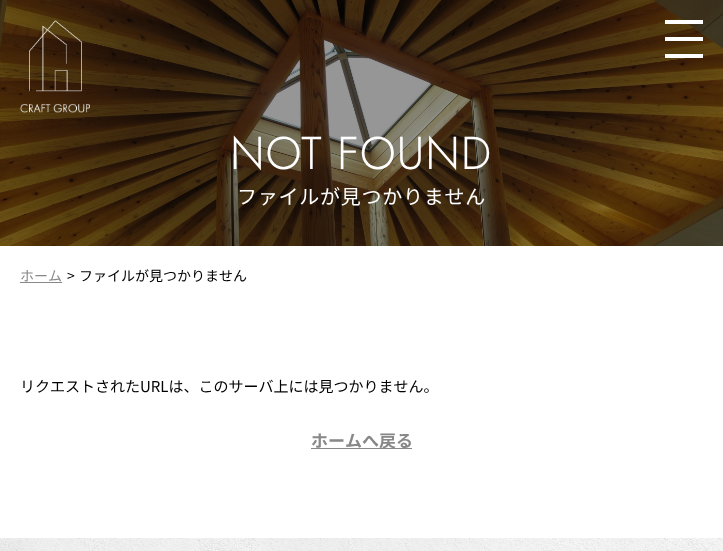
(async () => {
  const canvas = document.querySelector("canvas");
  canvas.width = 723;
  canvas.height = 551;
  const ctx = canvas.getContext("2d");
  ctx.miterLimit = 4;
  ctx.fontKerning = "normal";
  async function loadImage(src) {
    const img = new Image();
    img.src = src;
    await img.decode();
    return img;
  }

  ctx.fillStyle = "#ffffff";
  ctx.fillRect(0, 0, 723, 551);
  ctx.drawImage(await loadImage("img/2.png"), 0, 0, 723, 246);
  ctx.drawImage(await loadImage("img/1.png"), 20, 20, 70, 93);
  for (const [x, y, w, h, color] of [
    [665, 20, 38, 4, "#ffffff"],
    [665, 37, 38, 4, "#ffffff"],
    [665, 54, 38, 4, "#ffffff"],
    [20, 282, 42, 1, "#888888"],
    [311, 448, 101, 1, "#888888"],
  ]) {
    ctx.fillStyle = color;
    ctx.fillRect(x, y, w, h);
  }
  ctx.drawImage(await loadImage("img/3.png"), 0, 538, 723, 13);
  ctx.letterSpacing = "0.75px";
  ctx.font = "300 46px Jost";
  ctx.fillStyle = "#ffffff";
  ctx.fillText("NOT FOUND", 230, 169);
  ctx.font = "20px Noto Sans JP";
  ctx.fillText("ファイルが見つかりません", 237, 204);
  ctx.letterSpacing = "0px";
  ctx.font = "14px Noto Sans JP";
  ctx.fillStyle = "#888888";
  ctx.fillText("ホーム", 20, 281);
  ctx.fillStyle = "#000000";
  ctx.fillText(">", 67, 281);
  ctx.fillText("ファイルが見つかりません", 79, 281);
  ctx.font = "15px Noto Sans JP";
  ctx.fillText("リクエストされたURLは、このサーバ上には見つかりません。", 20, 392);
  ctx.font = "bold 17px Noto Sans JP";
  ctx.fillStyle = "#888888";
  ctx.fillText("ホームへ戻る", 311, 447);
})();
